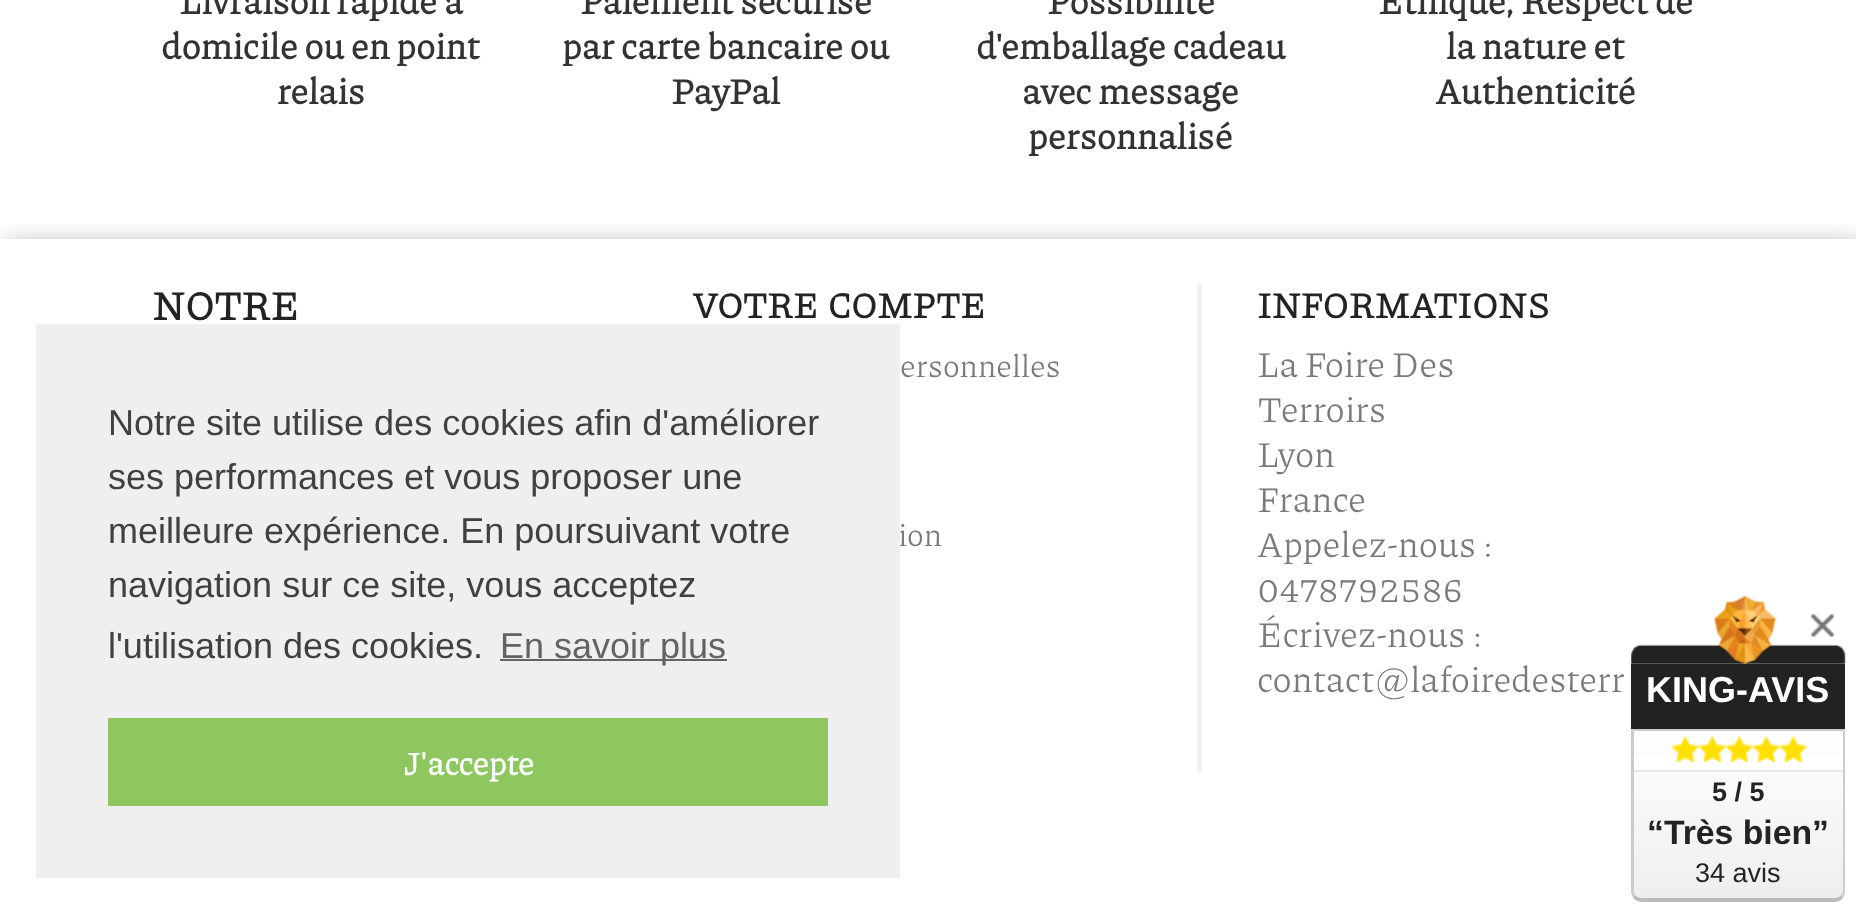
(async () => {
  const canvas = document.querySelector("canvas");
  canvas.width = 1856;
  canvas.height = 913;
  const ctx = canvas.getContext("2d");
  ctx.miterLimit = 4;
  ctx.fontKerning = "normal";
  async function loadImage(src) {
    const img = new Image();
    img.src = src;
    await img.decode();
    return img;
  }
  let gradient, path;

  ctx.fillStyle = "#ffffff";
  ctx.fillRect(0, 0, 1856, 913);
  ctx.save();
  ctx.beginPath();
  ctx.rect(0, 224, 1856, 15);
  ctx.clip();
  ctx.fillStyle = "rgba(0, 0, 0, 0.3)";
  ctx.filter = "blur(12.5px)";
  ctx.beginPath();
  ctx.rect(5, 243, 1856, 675);
  ctx.fill();
  ctx.filter = "none";
  ctx.restore();
  ctx.fillStyle = "#f1f1f1";
  ctx.fillRect(1197, 284, 5, 488);
  ctx.drawImage(await loadImage("img/1.png"), 1631, 595, 215, 69);
  ctx.fillStyle = "#222222";
  ctx.fillRect(1631, 664, 214, 65);
  gradient = ctx.createLinearGradient(1738, 731, 1738, 898);
  gradient.addColorStop(0, "#ffffff");
  gradient.addColorStop(1, "#eeeeee");
  ctx.fillStyle = gradient;
  path = new Path2D("M1634 731H1843V891C1843 895 1839 898 1834 898H1642C1638 898 1634 895 1634 891Z");
  ctx.fill(path);
  ctx.fillStyle = "#cccccc";
  path = new Path2D("M1634 731H1843L1845 729H1631L1634 732Z");
  ctx.fill(path);
  path = new Path2D("M1845 729L1843 731V892L1841 895L1843 898C1844 896 1845 893 1845 891Z");
  ctx.fill(path);
  ctx.fillStyle = "#bbbbbb";
  path = new Path2D("M1843 898C1841 900 1838 902 1834 902H1642C1639 902 1635 900 1633 898L1635 895C1637 897 1639 898 1642 898H1834C1837 898 1840 897 1841 895Z");
  ctx.fill(path);
  ctx.fillStyle = "#cccccc";
  path = new Path2D("M1633 898L1631 893V729L1634 732V891C1634 892 1634 893 1635 895Z");
  ctx.fill(path);
  ctx.drawImage(await loadImage("img/2.png"), 1810, 614, 25, 23);
  ctx.fillStyle = "#ffffff";
  ctx.fillRect(1634, 756, 209, 14);
  ctx.fillStyle = "#e9e9e9";
  ctx.fillRect(1634, 770, 209, 2);
  ctx.drawImage(await loadImage("img/3.png"), 1671, 735, 29, 28);
  ctx.drawImage(await loadImage("img/4.png"), 1698, 735, 29, 28);
  ctx.drawImage(await loadImage("img/5.png"), 1725, 735, 29, 28);
  ctx.drawImage(await loadImage("img/4.png"), 1752, 735, 29, 28);
  ctx.drawImage(await loadImage("img/5.png"), 1779, 735, 29, 28);
  ctx.font = "bold 36px Piazzolla";
  ctx.fillStyle = "#333333";
  for (const [text, x, y] of [
    ["Livraison rapide à", 179, 14],
    ["domicile ou en point", 161, 59],
    ["relais", 277, 104],
    ["Paiement sécurisé", 580, 14],
    ["par carte bancaire ou", 562, 59],
    ["PayPal", 671, 104],
    ["Possibilité", 1047, 14],
    ["d'emballage cadeau", 976, 59],
    ["avec message", 1022, 104],
    ["personnalisé", 1028, 149],
    ["Ethique, Respect de", 1378, 14],
    ["la nature et", 1446, 59],
    ["Authenticité", 1435, 104],
  ]) {
    ctx.fillText(text, x, y);
  }
  ctx.font = "bold 40.5px Piazzolla";
  ctx.fillStyle = "#232323";
  ctx.fillText("NOTRE", 152, 320);
  ctx.font = "bold 36px Piazzolla";
  ctx.fillText("VOTRE COMPTE", 692, 318);
  ctx.font = "100 31.5px Piazzolla";
  ctx.fillStyle = "#7a7a7a";
  ctx.fillText("ersonnelles", 900, 377);
  ctx.fillText("ion", 898, 546);
  ctx.font = "bold 36px Piazzolla";
  ctx.fillStyle = "#232323";
  ctx.fillText("INFORMATIONS", 1257, 318);
  ctx.font = "100 36px Piazzolla";
  ctx.fillStyle = "#7a7a7a";
  for (const [text, x, y] of [
    ["La Foire Des", 1257, 377],
    ["Terroirs", 1257, 422],
    ["Lyon", 1257, 467],
    ["France", 1257, 512],
    ["Appelez-nous :", 1257, 557],
    ["0478792586", 1257, 602],
    ["Écrivez-nous :", 1257, 647],
    ["contact@lafoiredesterr", 1257, 692],
  ]) {
    ctx.fillText(text, x, y);
  }
  ctx.fillStyle = "#efefef";
  ctx.fillRect(36, 324, 864, 554);
  ctx.font = "36px Liberation Sans";
  ctx.fillStyle = "#404040";
  for (const [text, x, y] of [
    ["Notre site utilise des cookies afin d'améliorer", 108, 435],
    ["ses performances et vous proposer une", 108, 489],
    ["meilleure expérience. En poursuivant votre", 108, 543],
    ["navigation sur ce site, vous acceptez", 108, 597],
    ["l'utilisation des cookies.", 108, 658],
  ]) {
    ctx.fillText(text, x, y);
  }
  ctx.fillStyle = "#636363";
  ctx.fillRect(500, 659, 227, 2);
  ctx.fillText("En savoir plus", 500, 658);
  ctx.fillStyle = "#8ec760";
  ctx.fillRect(108, 718, 720, 88);
  ctx.font = "bold 32.5px Piazzolla";
  ctx.fillStyle = "#ffffff";
  ctx.fillText("J'accepte", 403, 775);
  ctx.font = "bold 36px Liberation Sans";
  ctx.fillText("KING-AVIS", 1646, 702);
  ctx.font = "bold 27px Liberation Sans";
  ctx.fillStyle = "#232323";
  ctx.fillText("5 / 5", 1712, 801);
  ctx.font = "bold 33.75px Liberation Sans";
  ctx.fillText("“Très bien”", 1647, 844);
  ctx.font = "27px Liberation Sans";
  ctx.fillText("34 avis", 1695, 882);
})();
